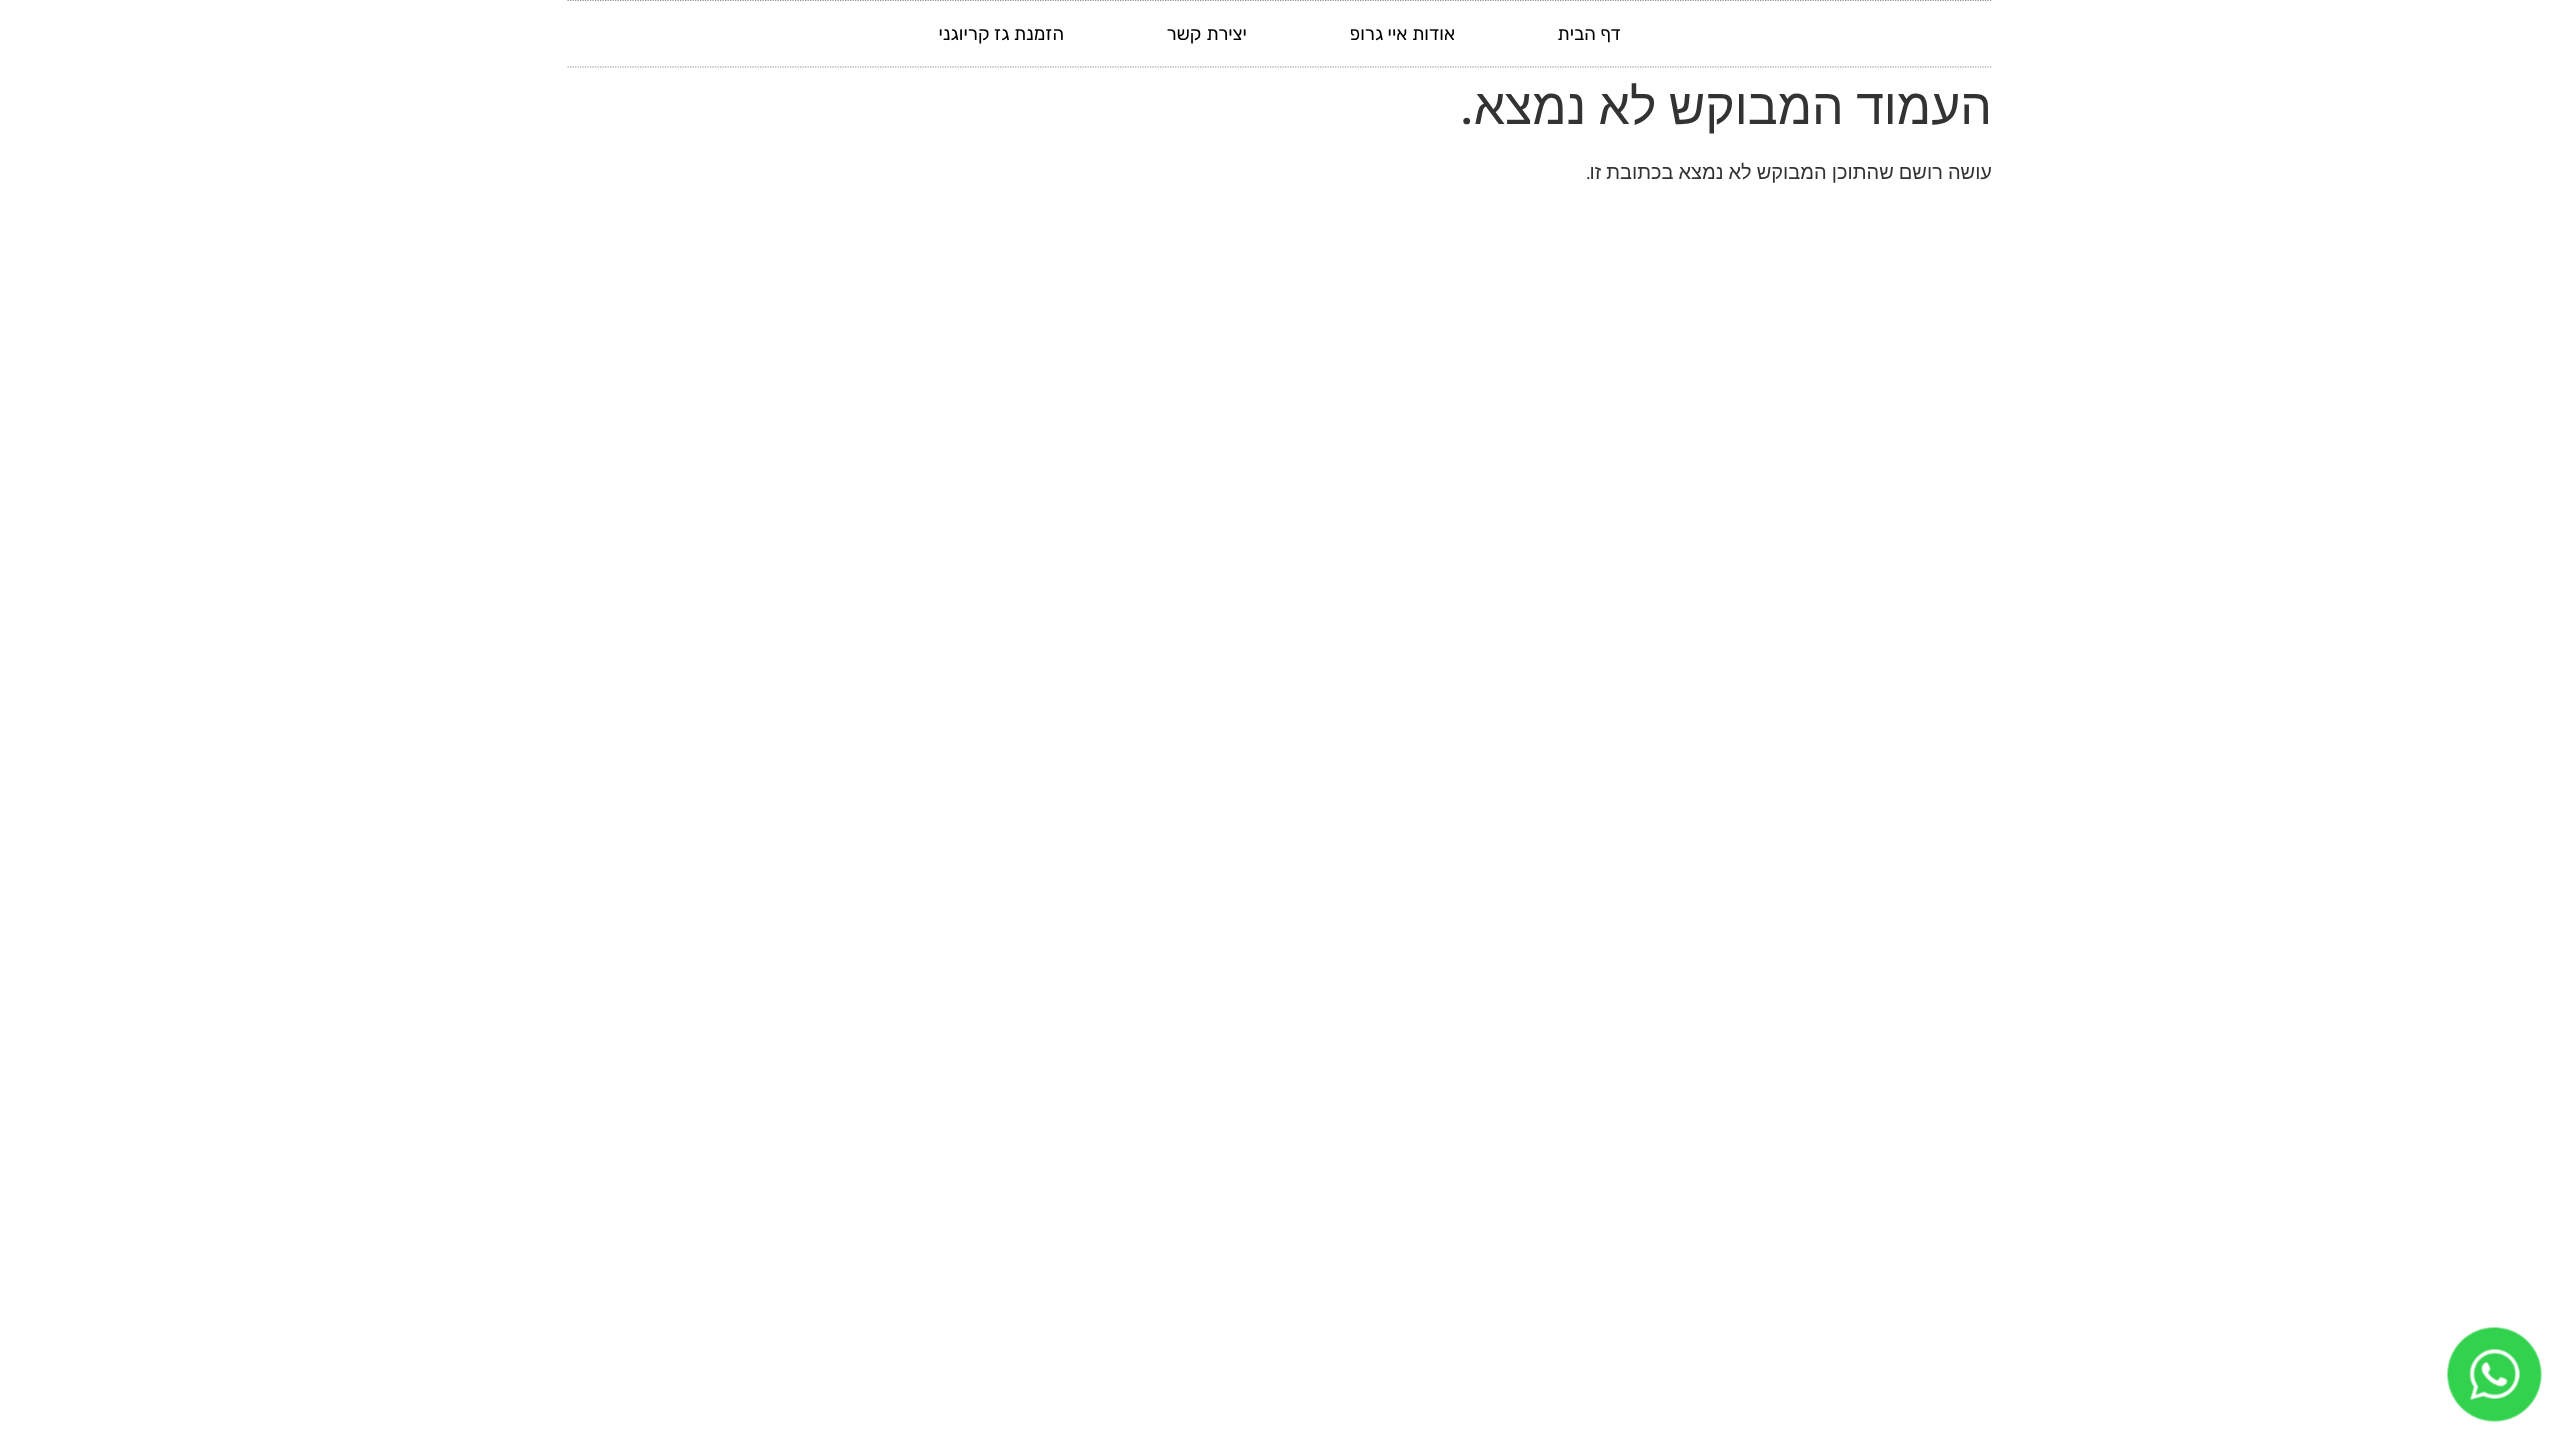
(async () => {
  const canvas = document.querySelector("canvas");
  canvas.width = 2560;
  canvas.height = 1448;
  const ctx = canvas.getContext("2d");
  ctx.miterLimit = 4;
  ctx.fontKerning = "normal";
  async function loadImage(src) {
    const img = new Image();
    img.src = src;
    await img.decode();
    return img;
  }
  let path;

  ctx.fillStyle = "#ffffff";
  ctx.fillRect(0, 0, 2560, 1448);
  path = new Path2D("M567.5 .5H1992.5");
  ctx.strokeStyle = "#8e8e8e";
  ctx.lineWidth = 1.2;
  ctx.setLineDash([1.25, 1.25]);
  ctx.stroke(path);
  path = new Path2D("M567.5 67H1992.5");
  ctx.stroke(path);
  ctx.drawImage(await loadImage("img/1.png"), 2447, 1327, 95, 95);
  ctx.direction = "rtl";
  ctx.font = "18.75px Rubik";
  ctx.fillStyle = "#000000";
  for (const [text, x, y] of [
    ["דף הבית", 1621, 40],
    ["אודות איי גרופ", 1455, 40],
    ["יצירת קשר", 1247, 40],
    ["הזמנת גז קריוגני", 1064, 40],
  ]) {
    ctx.fillText(text, x, y);
  }
  ctx.wordSpacing = "-1.5px";
  ctx.font = "50px Liberation Sans";
  ctx.fillStyle = "#333333";
  ctx.fillText("העמוד המבוקש לא נמצא", 1992, 124);
  ctx.wordSpacing = "0px";
  ctx.font = "500 50px Roboto";
  ctx.fillText(".", 1474, 124);
  ctx.wordSpacing = "-0.5px";
  ctx.font = "20px Liberation Sans";
  ctx.fillText("עושה רושם שהתוכן המבוקש לא נמצא בכתובת זו", 1992, 179);
  ctx.wordSpacing = "0px";
  ctx.font = "20px Roboto";
  ctx.fillText(".", 1591, 179);
})();
